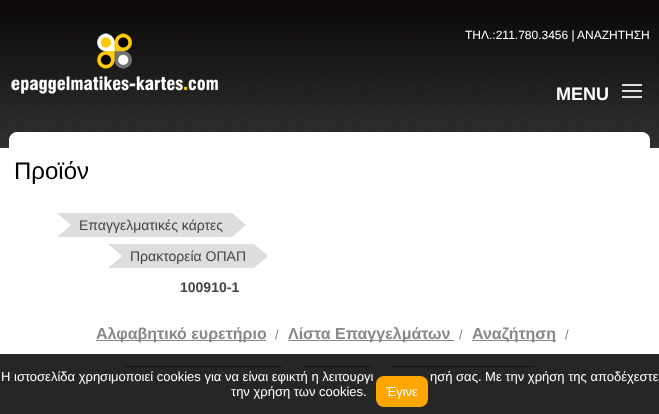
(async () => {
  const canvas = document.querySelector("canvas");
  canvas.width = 659;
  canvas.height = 414;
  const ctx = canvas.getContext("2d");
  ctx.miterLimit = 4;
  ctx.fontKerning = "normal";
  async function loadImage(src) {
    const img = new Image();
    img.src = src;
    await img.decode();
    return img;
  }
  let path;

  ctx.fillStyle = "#ffffff";
  ctx.fillRect(0, 0, 659, 414);
  ctx.drawImage(await loadImage("img/1.png"), 0, 0, 659, 148);
  ctx.drawImage(await loadImage("img/2.png"), 11, 33, 207, 61);
  for (const [x, y, w, h, color] of [
    [622, 84, 20, 2, "#dddddd"],
    [622, 90, 20, 2, "#dddddd"],
    [622, 96, 20, 2, "#dddddd"],
    [9, 132, 641, 16, "#ffffff"],
  ]) {
    ctx.fillStyle = color;
    ctx.fillRect(x, y, w, h);
  }
  ctx.drawImage(await loadImage("img/3.png"), 9, 132, 7, 8);
  ctx.drawImage(await loadImage("img/4.png"), 643, 132, 7, 8);
  ctx.fillStyle = "#dddddd";
  ctx.fillRect(71, 213, 161, 24);
  path = new Path2D("M57 213H71V225ZM71 237H57L71 225Z");
  ctx.fill(path);
  path = new Path2D("M232 237V213L246 225Z");
  ctx.fill(path);
  ctx.fillRect(122, 244, 132, 24);
  path = new Path2D("M108 244H122V256ZM122 268H108L122 256Z");
  ctx.fill(path);
  path = new Path2D("M254 268V244L268 256Z");
  ctx.fill(path);
  for (const [x, y, w, h, color] of [
    [96, 340, 170, 1, "#888888"],
    [288, 340, 166, 1, "#888888"],
    [472, 340, 84, 1, "#888888"],
    [124, 366, 158, 1, "#888888"],
    [303, 366, 68, 1, "#888888"],
    [392, 366, 143, 1, "#888888"],
    [0, 354, 659, 60, "rgba(0, 0, 0, 0.85)"],
  ]) {
    ctx.fillStyle = color;
    ctx.fillRect(x, y, w, h);
  }
  ctx.fillStyle = "#ffa500";
  ctx.beginPath();
  ctx.roundRect(376, 376, 52, 31, 8);
  ctx.fill();
  ctx.font = "12px Liberation Sans";
  ctx.fillStyle = "#ffffff";
  ctx.fillText("ΤΗΛ.:211.780.3456 |", 465, 39);
  ctx.fillText("ΑΝΑΖΗΤΗΣΗ", 577, 39);
  ctx.font = "bold 18px Liberation Sans";
  ctx.fillText("MENU", 556, 100);
  ctx.font = "24px Liberation Sans";
  ctx.fillStyle = "#000000";
  ctx.fillText("Προϊόν", 14, 179);
  ctx.font = "14px Liberation Sans";
  ctx.fillStyle = "#444444";
  ctx.fillText("Επαγγελματικές κάρτες", 79, 230);
  ctx.fillText("Πρακτορεία ΟΠΑΠ", 130, 261);
  ctx.font = "bold 14px Liberation Sans";
  ctx.fillText("100910-1", 180, 292);
  ctx.font = "bold 16px Liberation Sans";
  ctx.fillStyle = "#888888";
  ctx.fillText("Αλφαβητικό ευρετήριο", 96, 339);
  ctx.font = "13px Liberation Sans";
  ctx.fillStyle = "#808080";
  ctx.fillText("/", 275, 339);
  ctx.font = "bold 16px Liberation Sans";
  ctx.fillStyle = "#888888";
  ctx.fillText("Λίστα Επαγγελμάτων", 288, 339);
  ctx.font = "13px Liberation Sans";
  ctx.fillStyle = "#808080";
  ctx.fillText("/", 459, 339);
  ctx.font = "bold 16px Liberation Sans";
  ctx.fillStyle = "#888888";
  ctx.fillText("Αναζήτηση", 472, 339);
  ctx.font = "13px Liberation Sans";
  ctx.fillStyle = "#808080";
  ctx.fillText("/", 565, 339);
  ctx.fillStyle = "#ffffff";
  for (const [text, x, y] of [
    ["Η ιστοσελίδα χρησιμοποιεί cookies για να είναι εφικτή η λειτουργι", 1, 381],
    ["ησή σας. Με την χρήση της αποδέχεστε", 430, 381],
    ["την χρήση των cookies.", 231, 396],
    ["Έγινε", 386, 396],
  ]) {
    ctx.fillText(text, x, y);
  }
})();
